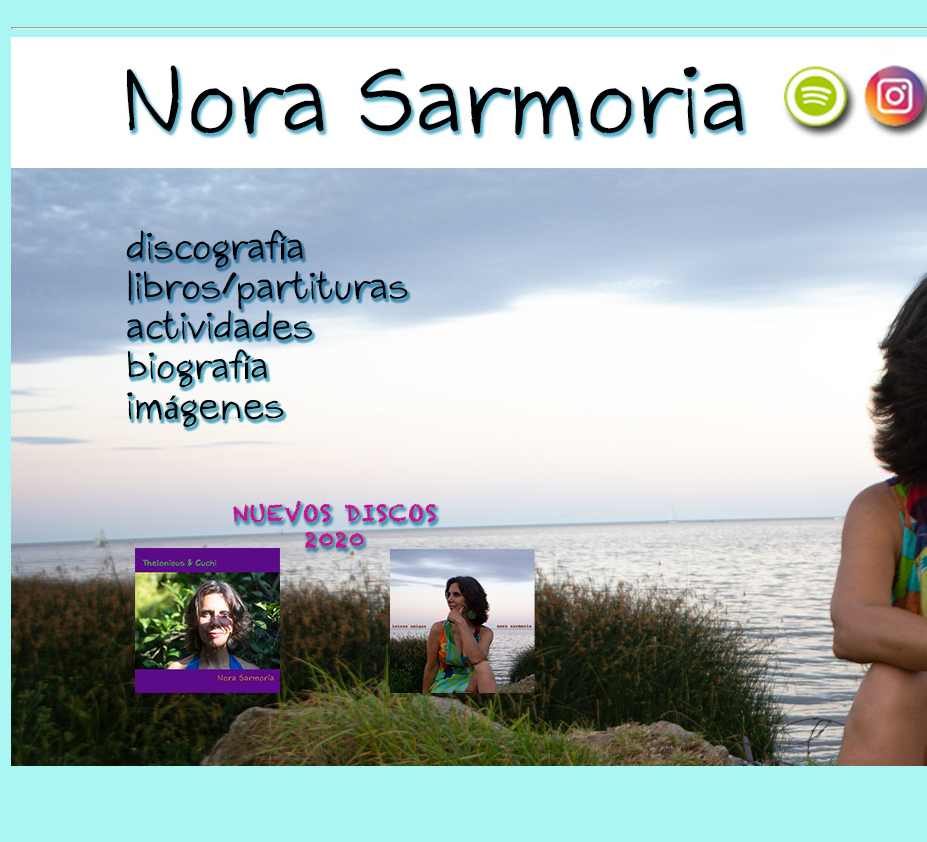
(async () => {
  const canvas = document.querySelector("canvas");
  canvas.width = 927;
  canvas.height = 842;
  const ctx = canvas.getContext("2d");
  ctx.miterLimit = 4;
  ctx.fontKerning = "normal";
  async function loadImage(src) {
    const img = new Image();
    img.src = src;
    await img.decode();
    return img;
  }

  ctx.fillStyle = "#aaf6f2";
  ctx.fillRect(0, 0, 927, 842);
  for (const [x, y, w, h, color] of [
    [11, 27, 916, 1, "#9f9f9f"],
    [11, 28, 916, 1, "#eeeeee"],
    [11, 27, 1, 2, "#9f9f9f"],
  ]) {
    ctx.fillStyle = color;
    ctx.fillRect(x, y, w, h);
  }
  ctx.drawImage(await loadImage("img/1.png"), 11, 37, 916, 729);
})();
